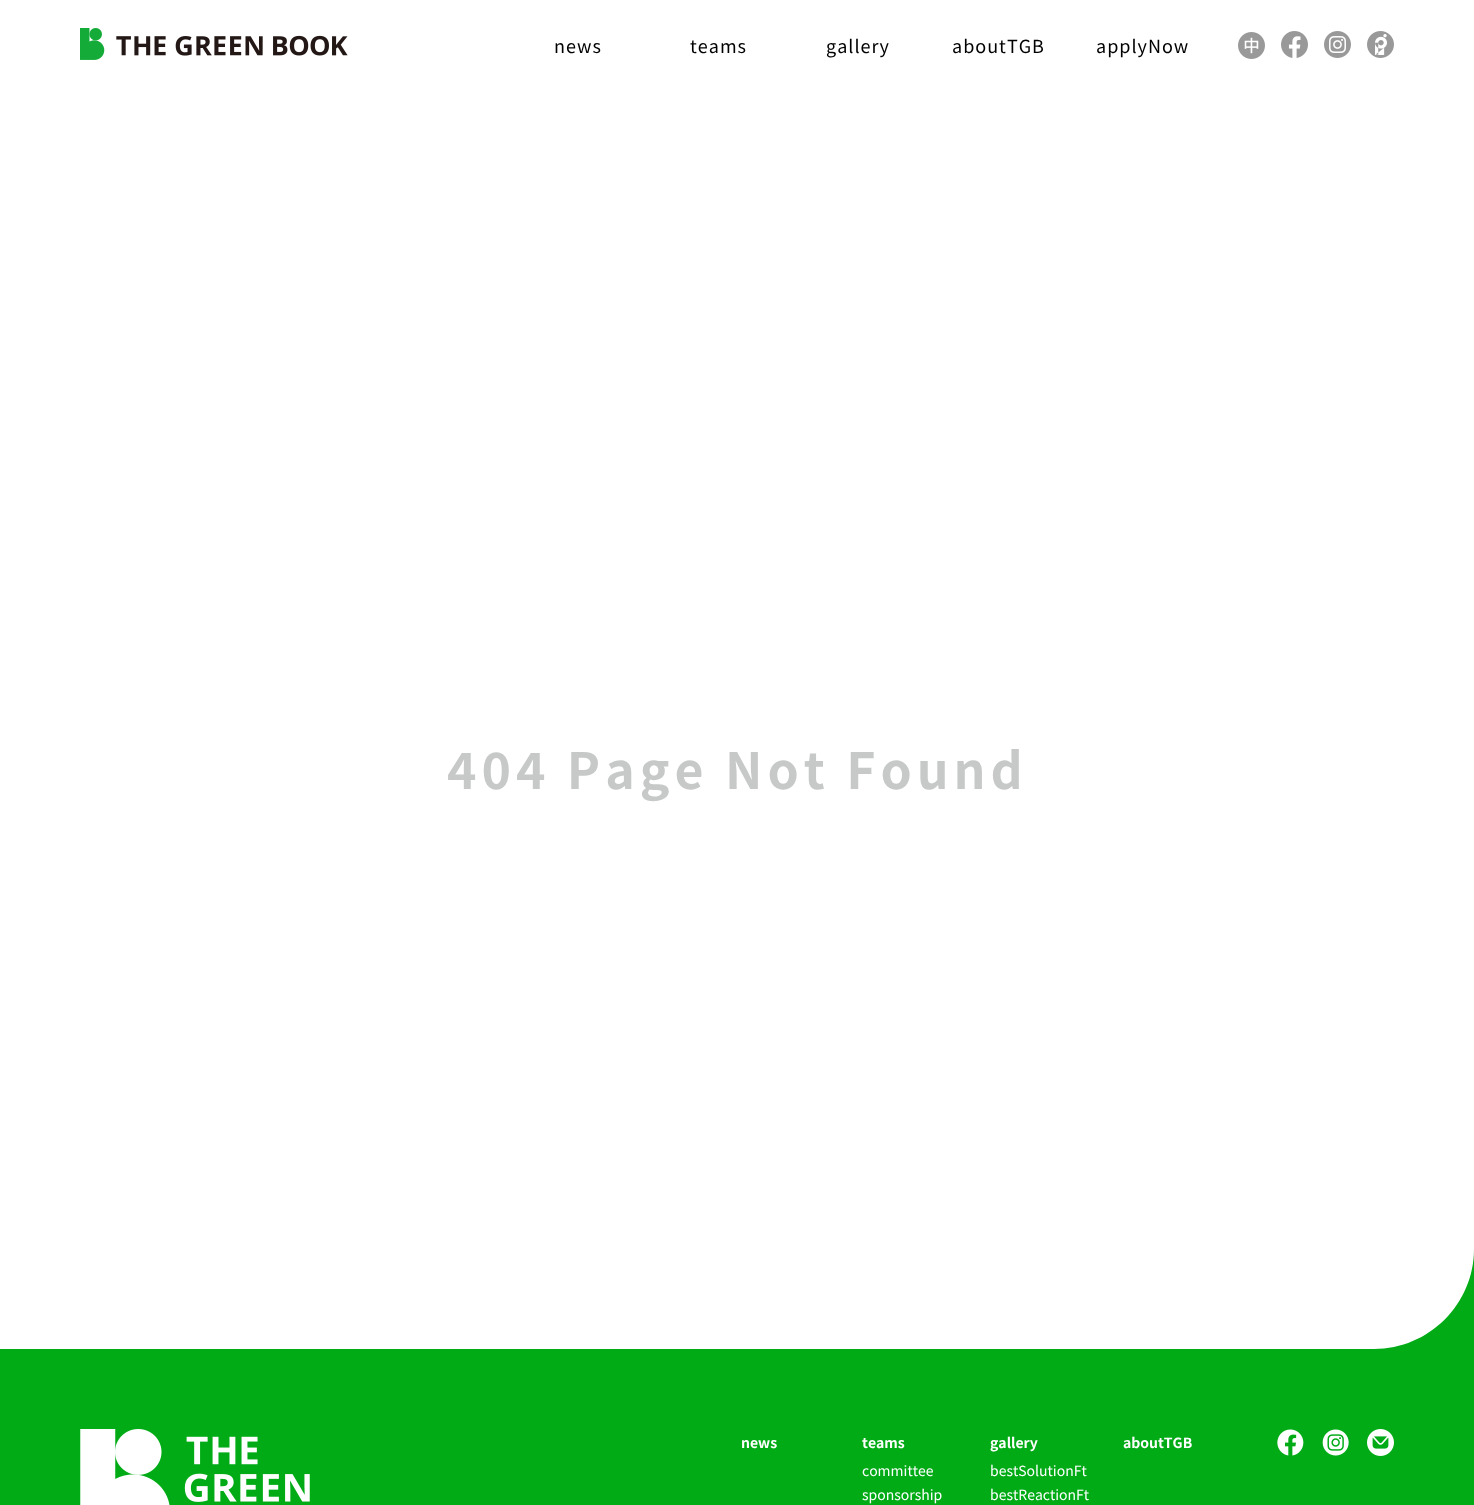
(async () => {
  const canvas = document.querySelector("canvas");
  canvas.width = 1474;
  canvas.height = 1505;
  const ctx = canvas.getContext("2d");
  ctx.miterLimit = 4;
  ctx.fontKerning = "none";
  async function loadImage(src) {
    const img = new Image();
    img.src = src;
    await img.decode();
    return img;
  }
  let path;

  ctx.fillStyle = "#ffffff";
  ctx.fillRect(0, 0, 1474, 1505);
  ctx.drawImage(await loadImage("img/1.png"), 80, 28, 268, 32);
  ctx.drawImage(await loadImage("img/2.png"), 1238, 32, 27, 27);
  ctx.drawImage(await loadImage("img/3.png"), 1281, 31, 27, 27);
  ctx.drawImage(await loadImage("img/4.png"), 1324, 31, 27, 27);
  ctx.drawImage(await loadImage("img/5.png"), 1367, 31, 27, 27);
  ctx.fillStyle = "#00ab16";
  ctx.fillRect(0, 1349, 1474, 156);
  path = new Path2D("M1474 1349H1374C1429 1349 1474 1304 1474 1249Z");
  ctx.fill(path, "evenodd");
  ctx.drawImage(await loadImage("img/6.png"), 80, 1429, 230, 76);
  ctx.drawImage(await loadImage("img/7.png"), 1277, 1429, 27, 27);
  ctx.drawImage(await loadImage("img/8.png"), 1322, 1429, 27, 27);
  ctx.drawImage(await loadImage("img/9.png"), 1367, 1429, 27, 27);
  ctx.letterSpacing = "1px";
  ctx.font = "18px Noto Sans TC";
  ctx.fillStyle = "#000000";
  for (const [text, x, y] of [
    ["news", 554, 53],
    ["teams", 690, 53],
    ["gallery", 826, 53],
    ["aboutTGB", 952, 53],
    ["applyNow", 1096, 53],
  ]) {
    ctx.fillText(text, x, y);
  }
  ctx.letterSpacing = "5px";
  ctx.font = "bold 50px Noto Sans TC";
  ctx.fillStyle = "#c7c9c9";
  ctx.fillText("404 Page Not Found", 447, 789);
  ctx.letterSpacing = "0px";
  ctx.font = "bold 14px Noto Sans TC";
  ctx.fillStyle = "#ffffff";
  ctx.fillText("news", 741, 1448);
  ctx.fillText("teams", 862, 1448);
  ctx.font = "14px Noto Sans TC";
  ctx.fillText("committee", 862, 1476);
  ctx.fillText("sponsorship", 862, 1500);
  ctx.font = "bold 14px Noto Sans TC";
  ctx.fillText("gallery", 990, 1448);
  ctx.font = "14px Noto Sans TC";
  ctx.fillText("bestSolutionFt", 990, 1476);
  ctx.fillText("bestReactionFt", 990, 1500);
  ctx.font = "bold 14px Noto Sans TC";
  ctx.fillText("aboutTGB", 1123, 1448);
})();
